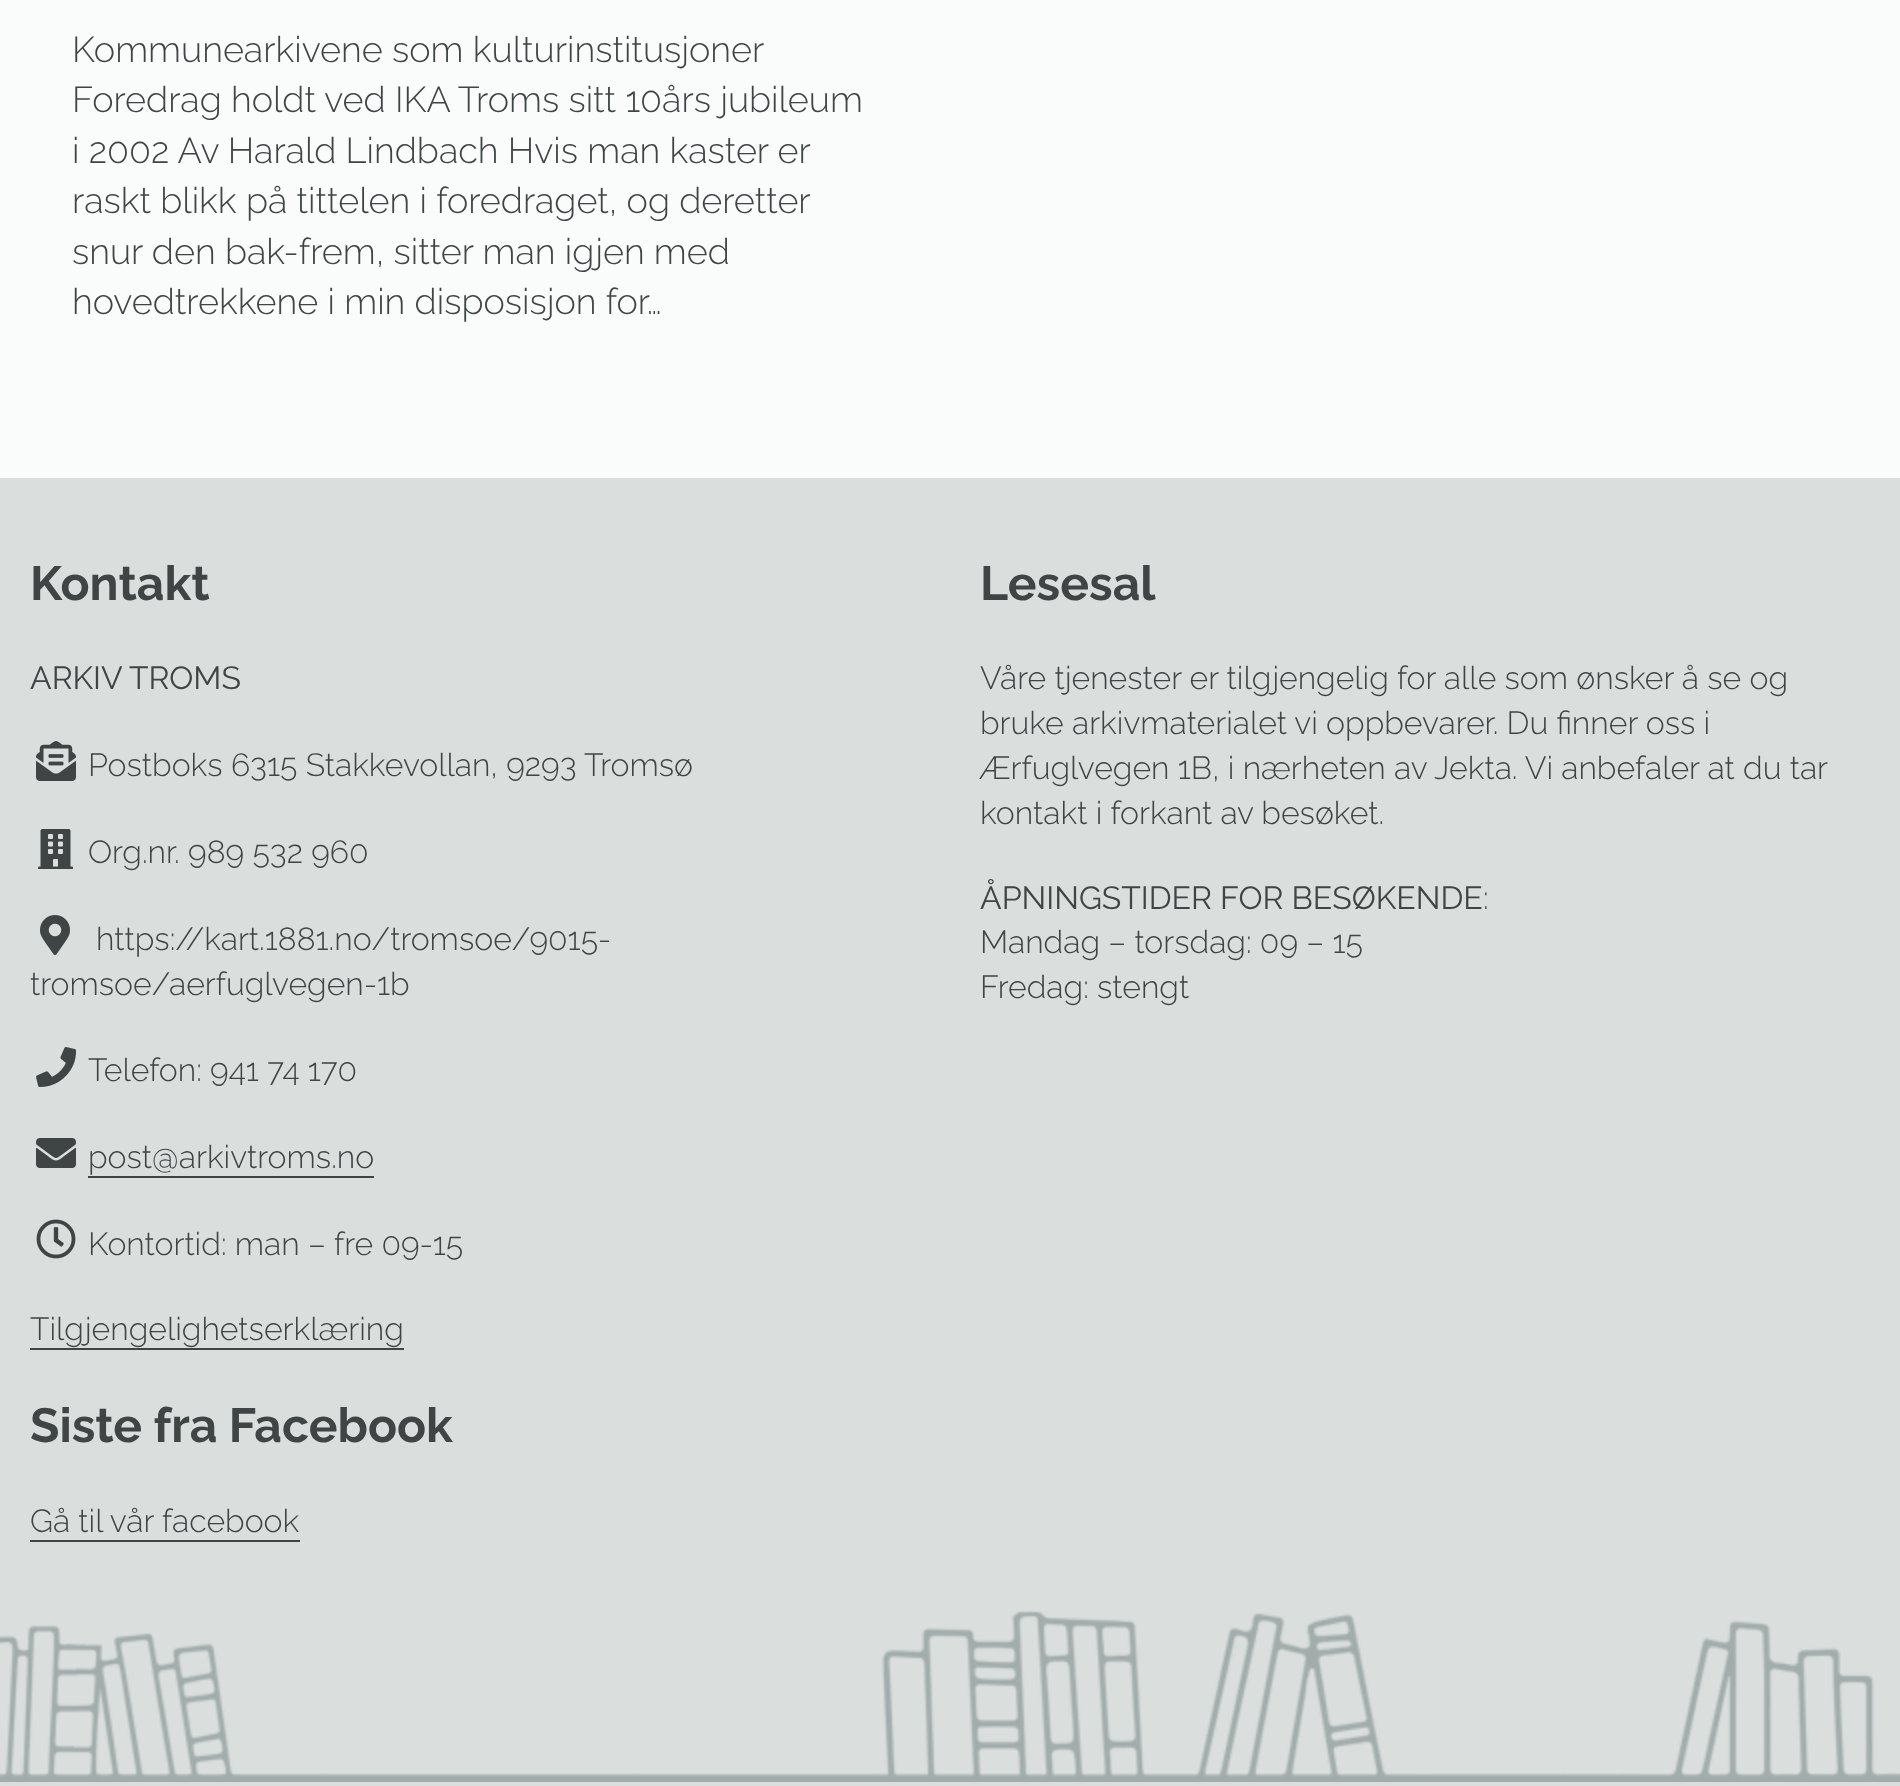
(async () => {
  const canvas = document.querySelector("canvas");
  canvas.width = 1900;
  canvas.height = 1786;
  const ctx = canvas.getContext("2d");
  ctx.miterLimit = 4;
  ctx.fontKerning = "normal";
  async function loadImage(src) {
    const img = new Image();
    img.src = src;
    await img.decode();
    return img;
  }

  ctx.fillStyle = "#fafbfb";
  ctx.fillRect(0, 0, 1900, 1786);
  ctx.fillStyle = "#dadedd";
  ctx.fillRect(0, 478, 1900, 1299);
  ctx.drawImage(await loadImage("img/1.png"), 0, 1611, 1900, 171);
  ctx.drawImage(await loadImage("img/2.png"), 36, 741, 40, 40);
  ctx.drawImage(await loadImage("img/3.png"), 38, 829, 35, 40);
  ctx.drawImage(await loadImage("img/4.png"), 40, 915, 30, 40);
  ctx.drawImage(await loadImage("img/5.png"), 36, 1047, 41, 40);
  ctx.drawImage(await loadImage("img/6.png"), 36, 1138, 40, 30);
  ctx.fillStyle = "#3f4444";
  ctx.fillRect(88, 1176, 286, 2);
  ctx.drawImage(await loadImage("img/7.png"), 36, 1219, 40, 40);
  for (const [x, y, w, h, color] of [
    [30, 1348, 374, 2, "#3f4444"],
    [30, 1540, 270, 2, "#3f4444"],
    [0, 1782, 1900, 4, "#dadedd"],
  ]) {
    ctx.fillStyle = color;
    ctx.fillRect(x, y, w, h);
  }
  ctx.font = "300 36px Raleway";
  ctx.fillStyle = "#3f4444";
  for (const [text, x, y] of [
    ["Kommunearkivene som kulturinstitusjoner", 72, 62],
    ["Foredrag holdt ved IKA Troms sitt 10års jubileum", 72, 112],
    ["i 2002 Av Harald Lindbach Hvis man kaster er", 72, 163],
    ["raskt blikk på tittelen i foredraget, og deretter", 72, 213],
    ["snur den bak-frem, sitter man igjen med", 72, 264],
    ["hovedtrekkene i min disposisjon for…", 72, 314],
  ]) {
    ctx.fillText(text, x, y);
  }
  ctx.font = "bold 48px Raleway";
  ctx.fillText("Kontakt", 30, 600);
  ctx.font = "32px Raleway";
  ctx.fillText("ARKIV TROMS", 30, 689);
  ctx.font = "300 32px Raleway";
  for (const [text, x, y] of [
    ["Postboks 6315 Stakkevollan, 9293 Tromsø", 88, 776],
    ["Org.nr. 989 532 960", 88, 863],
    ["https://kart.1881.no/tromsoe/9015-", 96, 950],
    ["tromsoe/aerfuglvegen-1b", 30, 995],
    ["Telefon: 941 74 170", 88, 1081],
    ["post@arkivtroms.no", 88, 1168],
    ["Kontortid: man – fre 09-15", 88, 1255],
    ["Tilgjengelighetserklæring", 30, 1340],
  ]) {
    ctx.fillText(text, x, y);
  }
  ctx.font = "bold 48px Raleway";
  ctx.fillText("Lesesal", 980, 600);
  ctx.font = "300 32px Raleway";
  for (const [text, x, y] of [
    ["Våre tjenester er tilgjengelig for alle som ønsker å se og", 980, 689],
    ["bruke arkivmaterialet vi oppbevarer. Du finner oss i", 980, 734],
    ["Ærfuglvegen 1B, i nærheten av Jekta. Vi anbefaler at du tar", 980, 779],
    ["kontakt i forkant av besøket.", 980, 824],
  ]) {
    ctx.fillText(text, x, y);
  }
  ctx.font = "32px Raleway";
  ctx.fillText("ÅPNINGSTIDER FOR BESØKENDE", 980, 909);
  ctx.font = "300 32px Raleway";
  for (const [text, x, y] of [
    [":", 1483, 909],
    ["Mandag – torsdag: 09 – 15", 980, 953],
    ["Fredag: stengt", 980, 998],
  ]) {
    ctx.fillText(text, x, y);
  }
  ctx.font = "bold 48px Raleway";
  ctx.fillText("Siste fra Facebook", 30, 1442);
  ctx.font = "300 32px Raleway";
  ctx.fillText("Gå til vår facebook", 30, 1532);
})();
